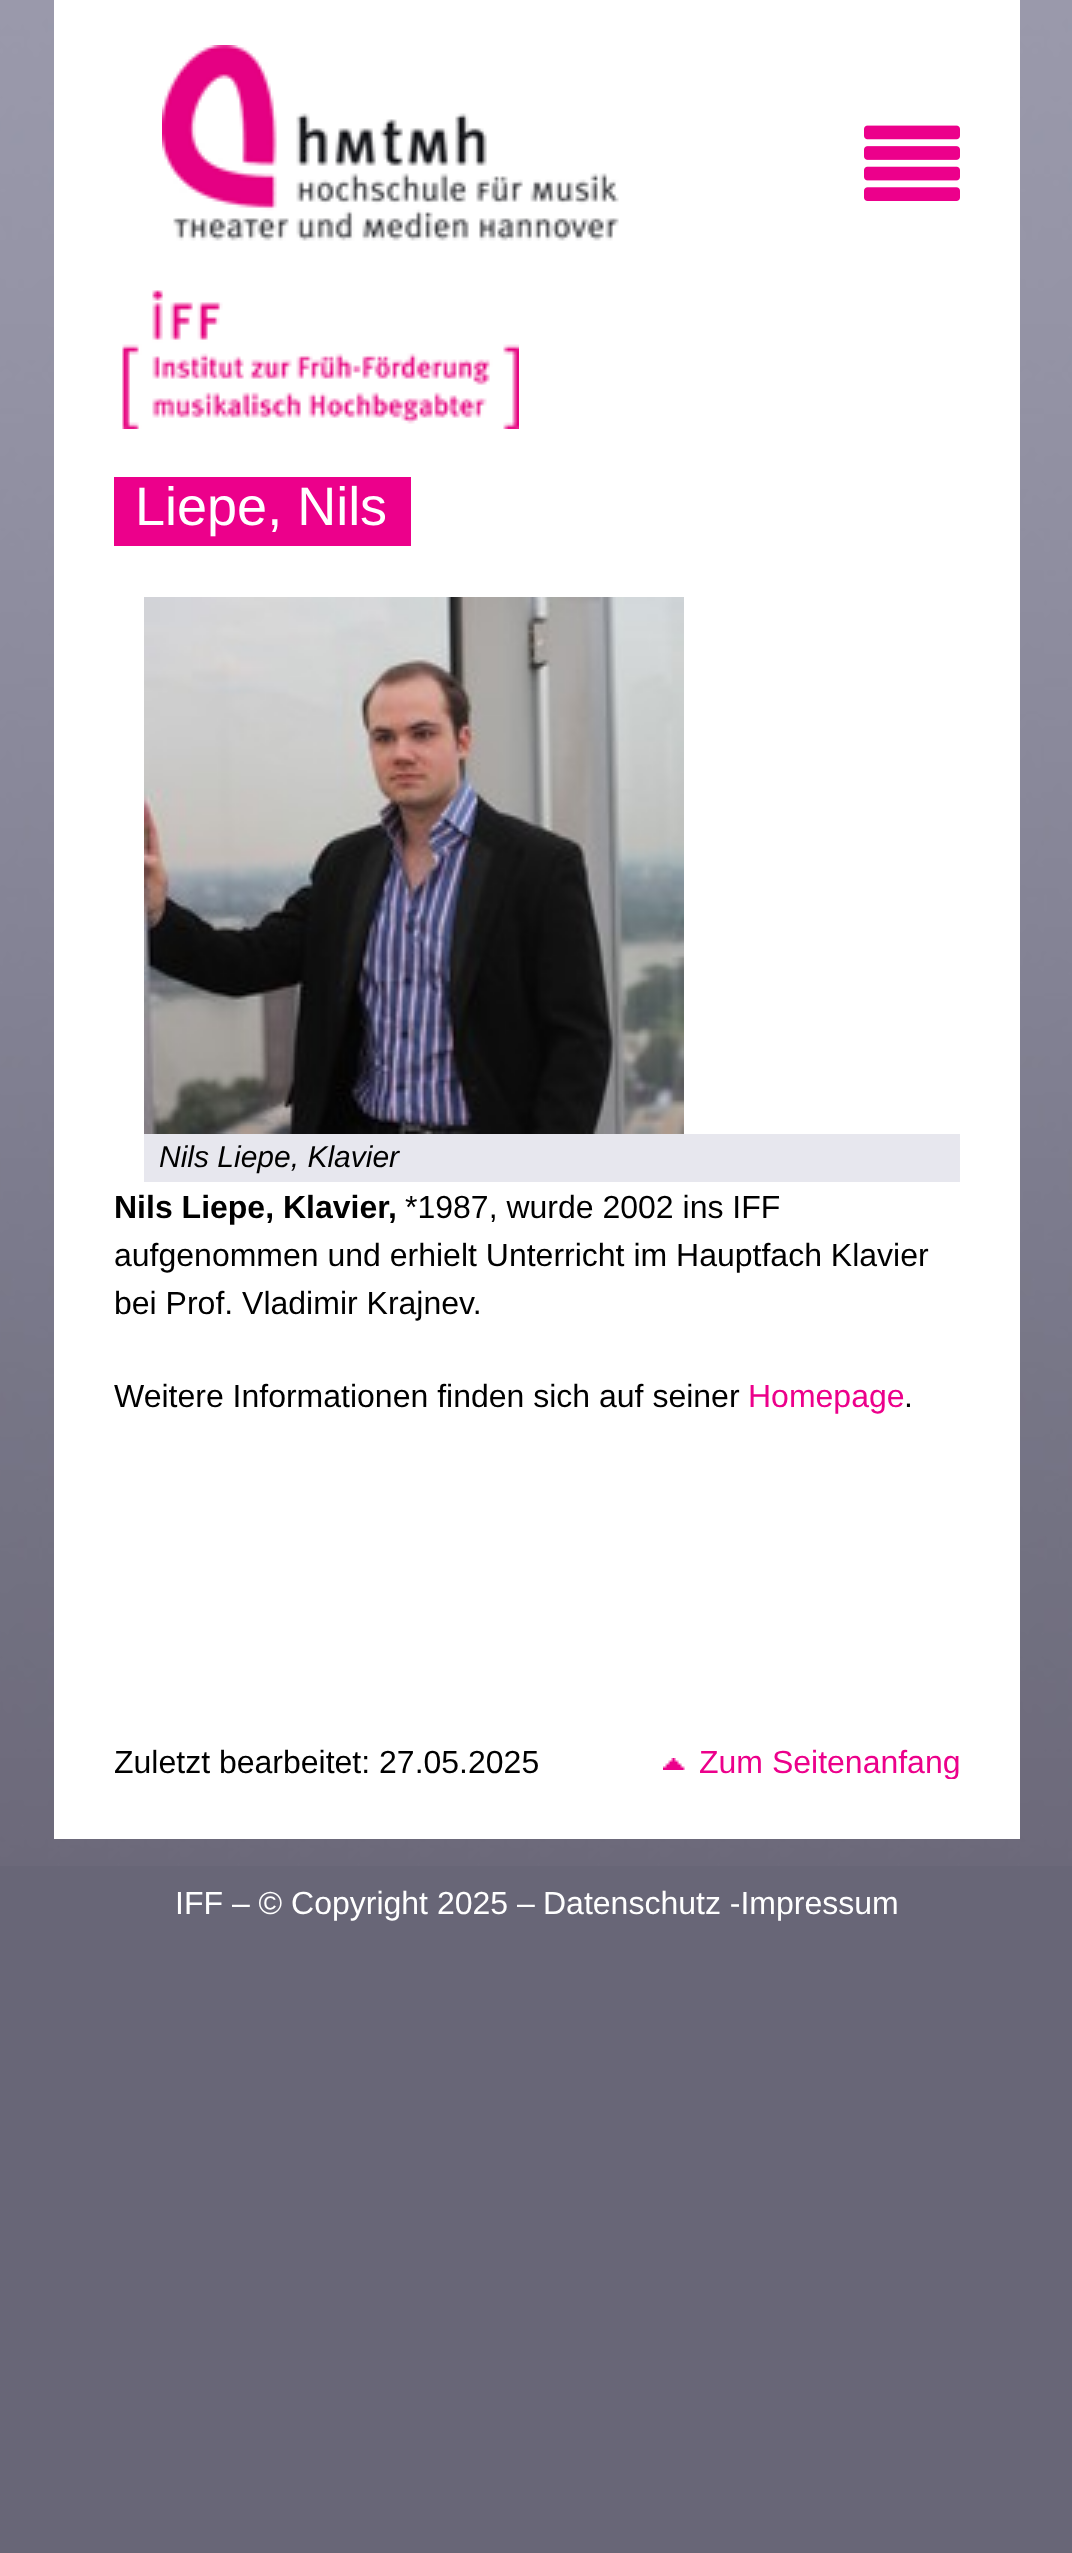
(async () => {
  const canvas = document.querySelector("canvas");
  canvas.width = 1072;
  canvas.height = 2553;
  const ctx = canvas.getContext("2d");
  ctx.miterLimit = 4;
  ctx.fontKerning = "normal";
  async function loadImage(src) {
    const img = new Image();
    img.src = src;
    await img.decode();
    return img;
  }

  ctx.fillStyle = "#686677";
  ctx.fillRect(0, 0, 1072, 2553);
  ctx.drawImage(await loadImage("img/1.png"), 0, 0, 1072, 1866);
  ctx.fillStyle = "#ffffff";
  ctx.fillRect(54, 0, 966, 1839);
  ctx.drawImage(await loadImage("img/2.png"), 162, 45, 457, 196);
  ctx.drawImage(await loadImage("img/3.png"), 864, 125, 96, 76);
  ctx.drawImage(await loadImage("img/4.png"), 122, 290, 397, 139);
  ctx.fillStyle = "#ec008b";
  ctx.fillRect(114, 477, 297, 69);
  ctx.drawImage(await loadImage("img/5.png"), 144, 597, 540, 537);
  ctx.fillStyle = "#e7e7ee";
  ctx.fillRect(144, 1134, 816, 48);
  ctx.drawImage(await loadImage("img/6.png"), 663, 1758, 22, 12);
  ctx.font = "54px Liberation Sans";
  ctx.fillStyle = "#ffffff";
  ctx.fillText("Liepe, Nils", 135, 525);
  ctx.font = "italic 30px Liberation Sans";
  ctx.fillStyle = "#000000";
  ctx.fillText("Nils Liepe, Klavier", 159, 1167);
  ctx.font = "bold 32px Liberation Sans";
  ctx.fillText("Nils Liepe, Klavier,", 114, 1218);
  ctx.font = "32px Liberation Sans";
  for (const [text, x, y] of [
    ["*1987, wurde 2002 ins IFF", 405, 1218],
    ["aufgenommen und erhielt Unterricht im Hauptfach Klavier", 114, 1266],
    ["bei Prof. Vladimir Krajnev.", 114, 1314],
    ["Weitere Informationen finden sich auf seiner", 114, 1407],
  ]) {
    ctx.fillText(text, x, y);
  }
  ctx.fillStyle = "#ec008b";
  ctx.fillText("Homepage", 748, 1407);
  ctx.fillStyle = "#000000";
  ctx.fillText(".", 904, 1407);
  ctx.fillText("Zuletzt bearbeitet: 27.05.2025", 114, 1773);
  ctx.save();
  ctx.beginPath();
  ctx.rect(114, 1698, 846, 81);
  ctx.clip();
  ctx.fillStyle = "#ec008b";
  ctx.fillText("Zum Seitenanfang", 699, 1773);
  ctx.restore();
  ctx.fillStyle = "#ffffff";
  ctx.fillText("IFF – © Copyright 2025 –", 175, 1914);
  ctx.fillText("Datenschutz -Impressum", 543, 1914);
})();
